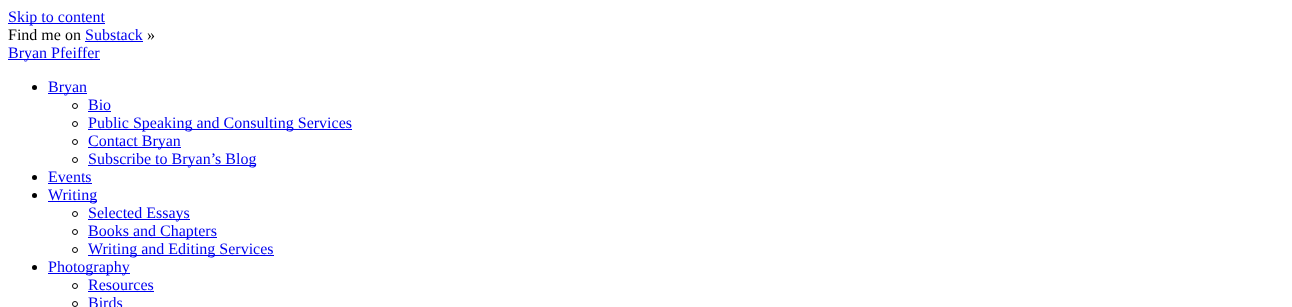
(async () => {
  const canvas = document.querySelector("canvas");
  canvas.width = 1292;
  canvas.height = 307;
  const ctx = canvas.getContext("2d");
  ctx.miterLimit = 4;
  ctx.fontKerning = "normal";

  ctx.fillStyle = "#ffffff";
  ctx.fillRect(0, 0, 1292, 307);
  for (const [x, y, w, h, color] of [
    [8, 23, 97, 1, "#0000ee"],
    [85, 41, 58, 1, "#0000ee"],
    [8, 59, 92, 1, "#0000ee"],
  ]) {
    ctx.fillStyle = color;
    ctx.fillRect(x, y, w, h);
  }
  ctx.fillStyle = "#000000";
  ctx.beginPath();
  ctx.arc(34.5, 87.5, 2.5, 0, Math.PI * 2);
  ctx.fill();
  ctx.fillStyle = "#0000ee";
  ctx.fillRect(48, 93, 39, 1);
  ctx.beginPath();
  ctx.arc(75, 106, 2.5, 0, Math.PI * 2);
  ctx.strokeStyle = "#000000";
  ctx.stroke();
  ctx.fillRect(88, 111, 23, 1);
  ctx.beginPath();
  ctx.arc(75, 124, 2.5, 0, Math.PI * 2);
  ctx.stroke();
  ctx.fillRect(88, 129, 264, 1);
  ctx.beginPath();
  ctx.arc(75, 142, 2.5, 0, Math.PI * 2);
  ctx.stroke();
  ctx.fillRect(88, 147, 93, 1);
  ctx.beginPath();
  ctx.arc(75, 160, 2.5, 0, Math.PI * 2);
  ctx.stroke();
  ctx.fillRect(88, 165, 168, 1);
  ctx.fillStyle = "#000000";
  ctx.beginPath();
  ctx.arc(34.5, 177.5, 2.5, 0, Math.PI * 2);
  ctx.fill();
  ctx.fillStyle = "#0000ee";
  ctx.fillRect(48, 183, 44, 1);
  ctx.fillStyle = "#000000";
  ctx.beginPath();
  ctx.arc(34.5, 195.5, 2.5, 0, Math.PI * 2);
  ctx.fill();
  ctx.fillStyle = "#0000ee";
  ctx.fillRect(48, 201, 49, 1);
  ctx.beginPath();
  ctx.arc(75, 214, 2.5, 0, Math.PI * 2);
  ctx.stroke();
  ctx.fillRect(88, 219, 102, 1);
  ctx.beginPath();
  ctx.arc(75, 232, 2.5, 0, Math.PI * 2);
  ctx.stroke();
  ctx.fillRect(88, 237, 129, 1);
  ctx.beginPath();
  ctx.arc(75, 250, 2.5, 0, Math.PI * 2);
  ctx.stroke();
  ctx.fillRect(88, 255, 186, 1);
  ctx.fillStyle = "#000000";
  ctx.beginPath();
  ctx.arc(34.5, 267.5, 2.5, 0, Math.PI * 2);
  ctx.fill();
  ctx.fillStyle = "#0000ee";
  ctx.fillRect(48, 273, 82, 1);
  ctx.beginPath();
  ctx.arc(75, 286, 2.5, 0, Math.PI * 2);
  ctx.stroke();
  ctx.fillRect(88, 291, 66, 1);
  ctx.beginPath();
  ctx.arc(75, 304, 2.5, 0, Math.PI * 2);
  ctx.stroke();
  ctx.font = "16px Liberation Serif";
  ctx.fillText("Skip to content", 8, 22);
  ctx.fillStyle = "#000000";
  ctx.fillText("Find me on", 8, 40);
  ctx.fillStyle = "#0000ee";
  ctx.fillText("Substack", 85, 40);
  ctx.fillStyle = "#000000";
  ctx.fillText("»", 147, 40);
  ctx.fillStyle = "#0000ee";
  for (const [text, x, y] of [
    ["Bryan Pfeiffer", 8, 58],
    ["Bryan", 48, 92],
    ["Bio", 88, 110],
    ["Public Speaking and Consulting Services", 88, 128],
    ["Contact Bryan", 88, 146],
    ["Subscribe to Bryan’s Blog", 88, 164],
    ["Events", 48, 182],
    ["Writing", 48, 200],
    ["Selected Essays", 88, 218],
    ["Books and Chapters", 88, 236],
    ["Writing and Editing Services", 88, 254],
    ["Photography", 48, 272],
    ["Resources", 88, 290],
    ["Birds", 88, 308],
  ]) {
    ctx.fillText(text, x, y);
  }
})();
